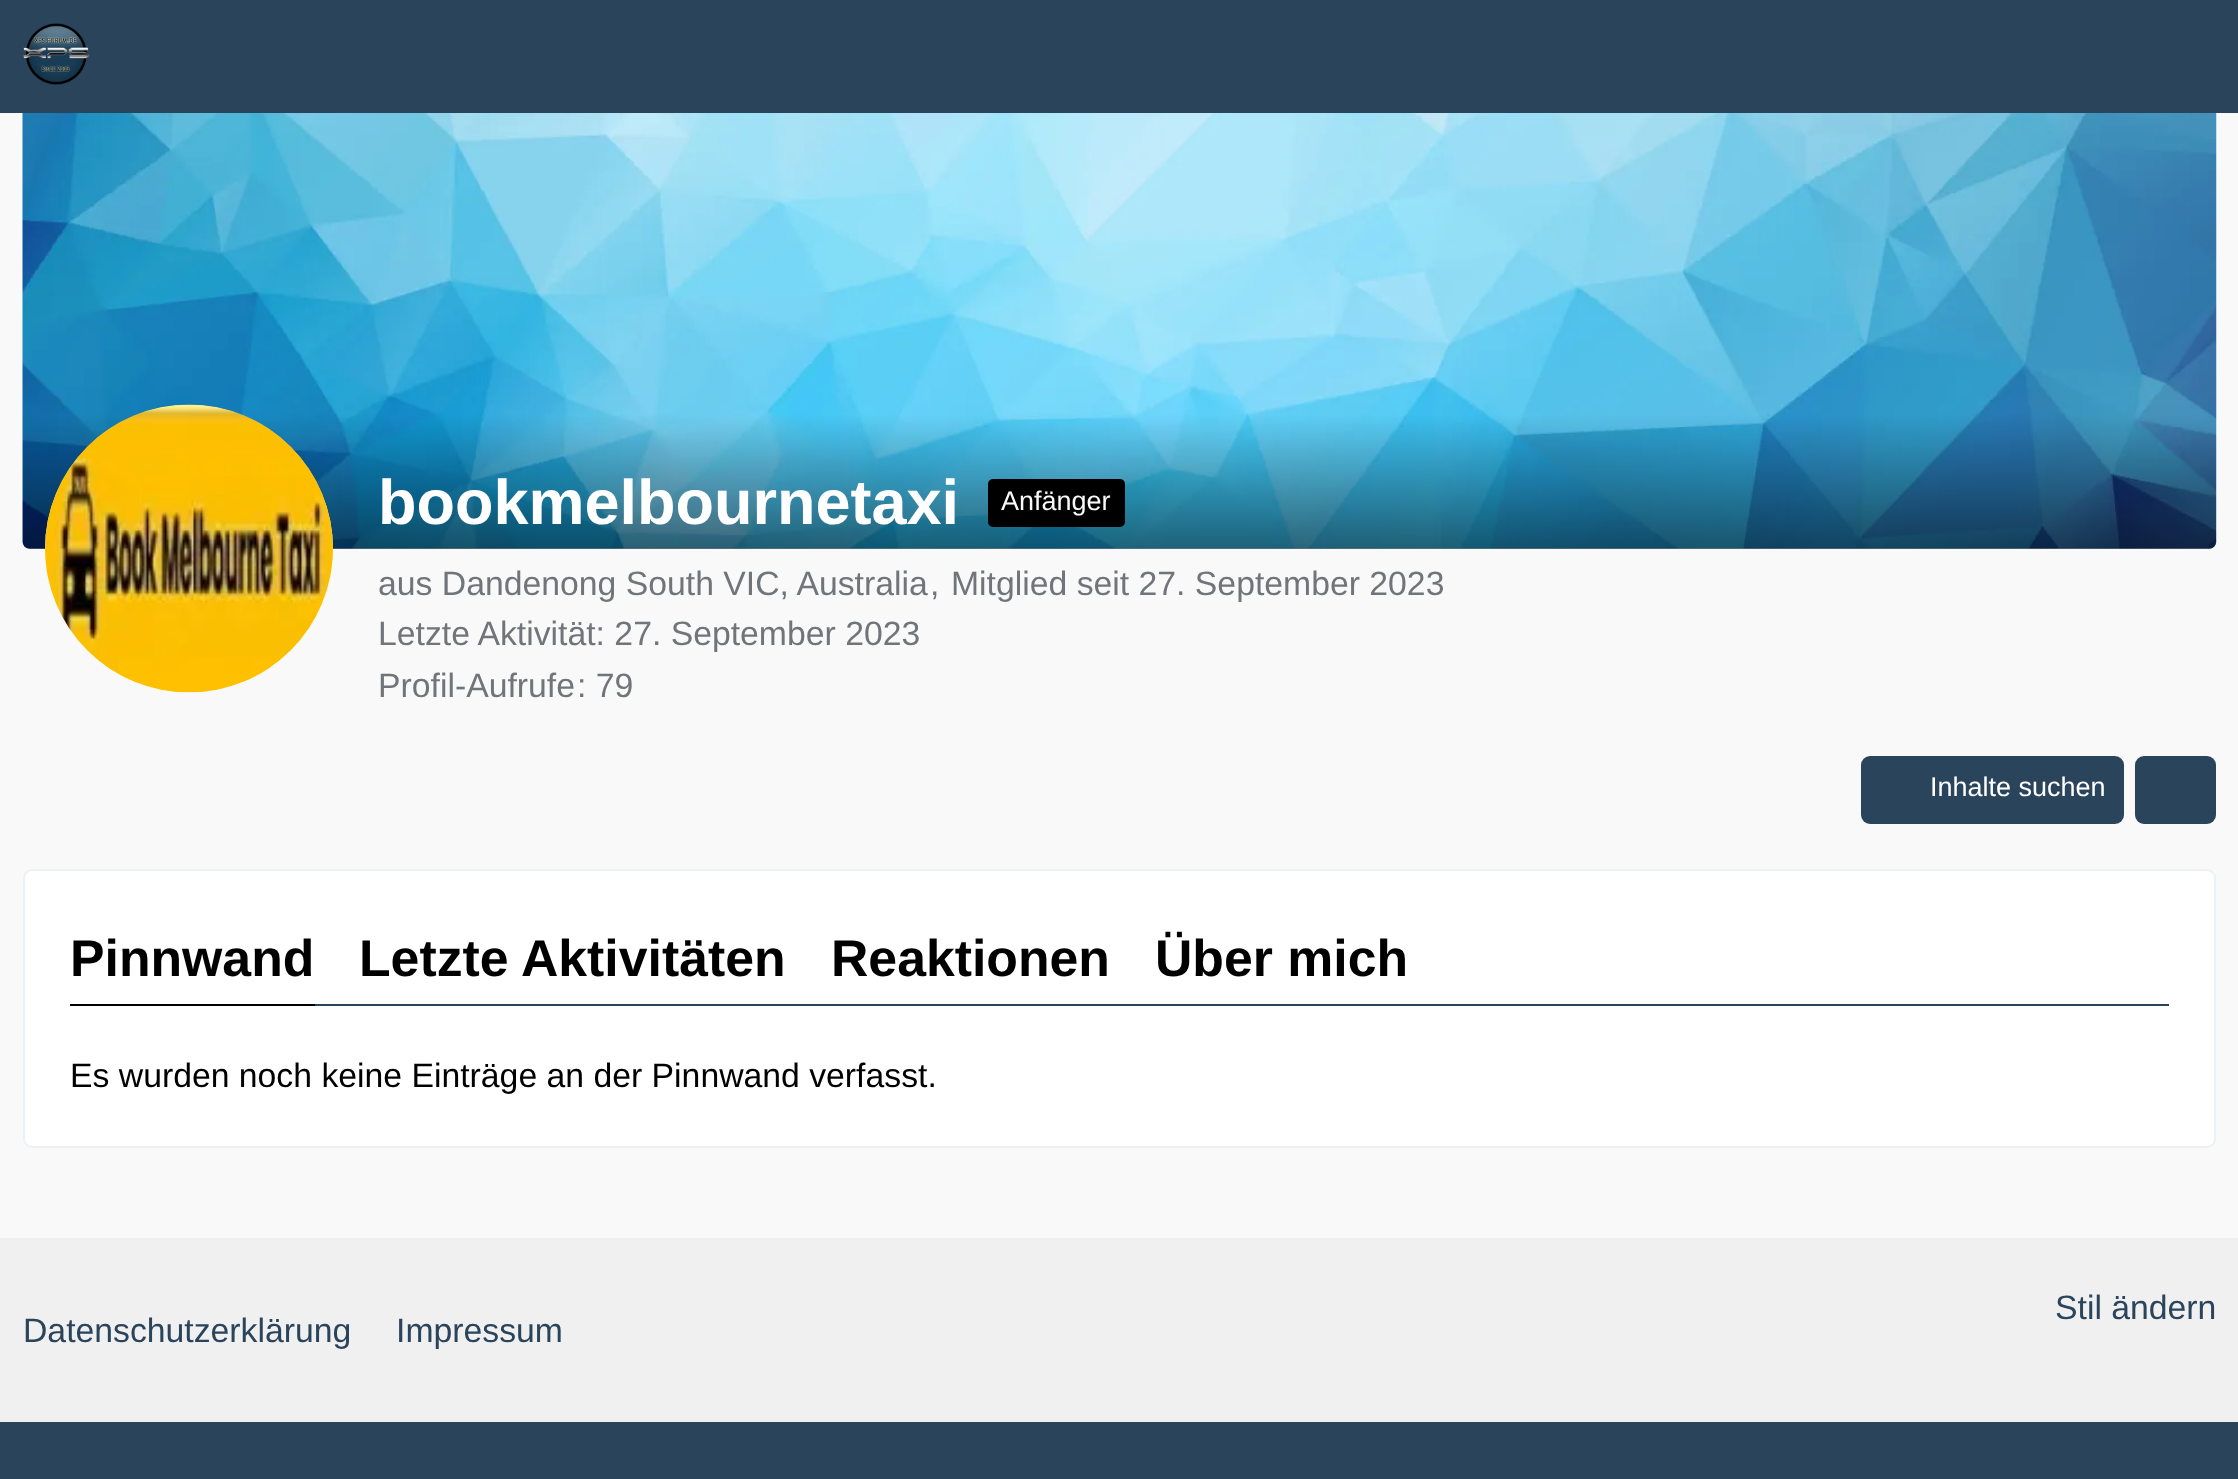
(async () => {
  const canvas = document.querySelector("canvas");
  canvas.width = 2238;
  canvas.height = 1479;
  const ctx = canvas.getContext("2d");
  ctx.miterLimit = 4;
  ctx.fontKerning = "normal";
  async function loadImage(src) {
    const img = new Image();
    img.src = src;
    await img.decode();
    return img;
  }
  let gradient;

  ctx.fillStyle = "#f9f9f9";
  ctx.fillRect(0, 0, 2238, 1479);
  ctx.drawImage(await loadImage("img/2.png"), 22, 113, 2195, 436);
  gradient = ctx.createLinearGradient(1119, 99, 1119, 549);
  gradient.addColorStop(0.7, "rgba(0, 0, 0, 0)");
  gradient.addColorStop(1, "rgba(0, 0, 0, 0.5)");
  ctx.fillStyle = gradient;
  ctx.beginPath();
  ctx.roundRect(23, 99, 2193, 450, [0, 0, 7, 7]);
  ctx.fill();
  ctx.fillStyle = "#2a445b";
  ctx.fillRect(0, 0, 2238, 113);
  ctx.drawImage(await loadImage("img/1.png"), 23, 23, 67, 62);
  ctx.fillStyle = "#ffffff";
  ctx.beginPath();
  ctx.arc(189, 549, 144, 0, Math.PI * 2);
  ctx.fill();
  ctx.drawImage(await loadImage("img/3.png"), 45, 404, 288, 289);
  ctx.fillStyle = "#000000";
  ctx.beginPath();
  ctx.roundRect(988, 479, 137, 48, 5);
  ctx.fill();
  ctx.fillStyle = "#2a445b";
  ctx.beginPath();
  ctx.roundRect(1861, 756, 263, 68, 9);
  ctx.fill();
  ctx.beginPath();
  ctx.roundRect(2135, 756, 81, 68, 9);
  ctx.fill();
  ctx.fillStyle = "#ffffff";
  ctx.beginPath();
  ctx.roundRect(24, 870, 2191, 277, 8);
  ctx.fill();
  ctx.strokeStyle = "#ecf1f7";
  ctx.lineWidth = 2;
  ctx.stroke();
  for (const [x, y, w, h, color] of [
    [315, 1004, 1854, 2, "#2a445b"],
    [70, 1004, 245, 2, "#000000"],
    [0, 1238, 2238, 184, "#f0f0f0"],
    [0, 1422, 2238, 57, "#2a445b"],
  ]) {
    ctx.fillStyle = color;
    ctx.fillRect(x, y, w, h);
  }
  ctx.font = "bold 63px Liberation Sans";
  ctx.fillStyle = "#ffffff";
  ctx.fillText("bookmelbournetaxi", 378, 524);
  ctx.font = "27px Liberation Sans";
  ctx.fillStyle = "#f9f9f9";
  ctx.fillText("Anfänger", 1001, 510);
  ctx.font = "33.75px Liberation Sans";
  ctx.fillStyle = "#71757a";
  for (const [text, x, y] of [
    ["aus Dandenong South VIC, Australia", 378, 595],
    [",", 930, 595],
    ["Mitglied seit 27. September 2023", 951, 595],
    ["Letzte Aktivität: 27. September 2023", 378, 645],
    ["Profil-Aufrufe", 378, 697],
    [": 79", 577, 697],
  ]) {
    ctx.fillText(text, x, y);
  }
  ctx.font = "27px Liberation Sans";
  ctx.fillStyle = "#ffffff";
  ctx.fillText("Inhalte suchen", 1930, 796);
  ctx.font = "bold 51.75px Liberation Sans";
  ctx.fillStyle = "#000000";
  for (const [text, x, y] of [
    ["Pinnwand", 70, 976],
    ["Letzte Aktivitäten", 359, 976],
    ["Reaktionen", 831, 976],
    ["Über mich", 1155, 976],
  ]) {
    ctx.fillText(text, x, y);
  }
  ctx.font = "33.75px Liberation Sans";
  ctx.fillText("Es wurden noch keine Einträge an der Pinnwand verfasst.", 70, 1087);
  ctx.fillStyle = "#2a445b";
  for (const [text, x, y] of [
    ["Stil ändern", 2055, 1319],
    ["Datenschutzerklärung", 23, 1342],
    ["Impressum", 396, 1342],
  ]) {
    ctx.fillText(text, x, y);
  }
})();
